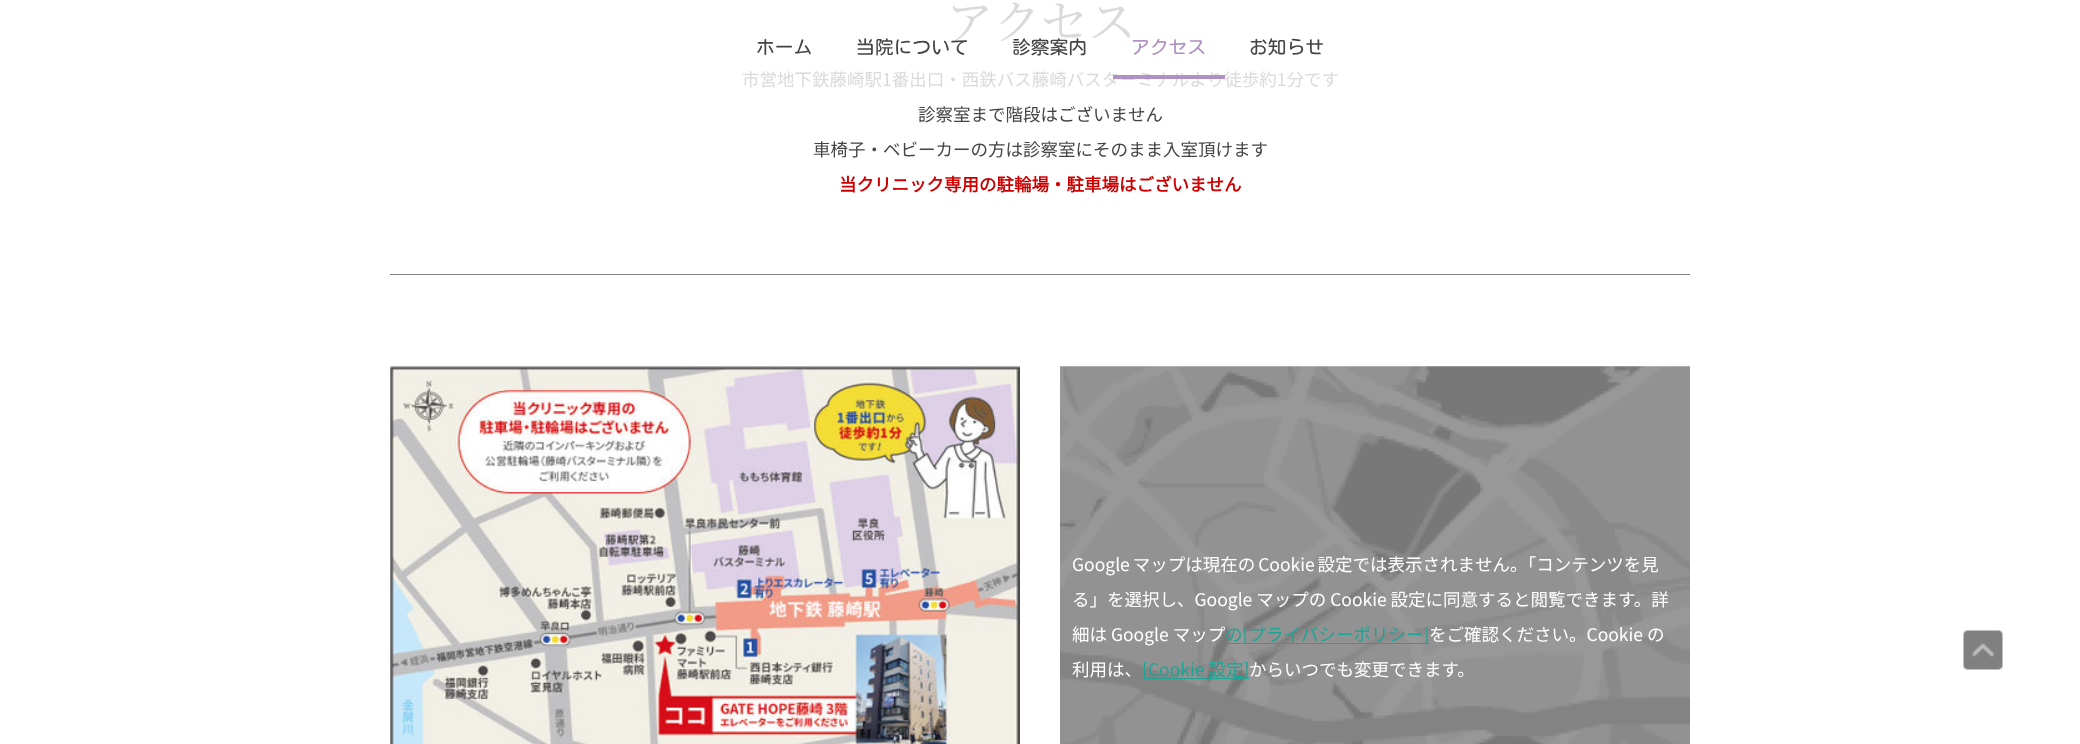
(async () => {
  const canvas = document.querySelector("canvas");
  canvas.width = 2080;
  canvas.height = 744;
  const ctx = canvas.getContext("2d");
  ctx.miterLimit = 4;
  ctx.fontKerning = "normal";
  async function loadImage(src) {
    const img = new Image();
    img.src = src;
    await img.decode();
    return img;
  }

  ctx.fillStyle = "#ffffff";
  ctx.fillRect(0, 0, 2080, 744);
  ctx.fillStyle = "#828282";
  ctx.fillRect(390, 274, 1300, 1);
  ctx.drawImage(await loadImage("img/1.png"), 390, 366, 630, 378);
  ctx.drawImage(await loadImage("img/2.png"), 1060, 366, 630, 378);
  ctx.fillStyle = "#1ca594";
  ctx.fillRect(1225, 643, 204, 1);
  ctx.fillRect(1143, 678, 106, 1);
  ctx.fillStyle = "#808080";
  ctx.beginPath();
  ctx.roundRect(1963, 630, 40, 40, 5);
  ctx.fill();
  ctx.beginPath();
  ctx.roundRect(1963.5, 630.5, 39, 39, 4.5);
  ctx.strokeStyle = "rgba(255, 255, 255, 0.5)";
  ctx.stroke();
  ctx.drawImage(await loadImage("img/3.png"), 1972, 643, 22, 14);
  ctx.font = "200 47.5px Noto Serif JP";
  ctx.fillStyle = "#dadada";
  ctx.fillText("アクセス", 946, 39);
  ctx.font = "100 17.5px Noto Sans JP";
  ctx.fillText("市営地下鉄藤崎駅1番出口・西鉄バス藤崎バスターミナルより徒歩約1分です", 742, 86);
  ctx.fillStyle = "#444444";
  ctx.fillText("診察室まで階段はございません", 918, 121);
  ctx.fillText("車椅子・ベビーカーの方は診察室にそのまま入室頂けます", 813, 156);
  ctx.font = "bold 17.5px Noto Sans JP";
  ctx.fillStyle = "#cc0000";
  ctx.fillText("当クリニック専用の駐輪場・駐車場はございません", 839, 191);
  ctx.wordSpacing = "-1px";
  ctx.font = "100 17.5px Noto Sans JP";
  ctx.fillStyle = "#ffffff";
  ctx.fillText("Google マップは現在の Cookie 設定では表示されません。「コンテンツを見", 1072, 571);
  ctx.wordSpacing = "0px";
  ctx.fillText("る」を選択し、Google マップの Cookie 設定に同意すると閲覧できます。詳", 1072, 606);
  ctx.fillText("細は Google マップ", 1072, 641);
  ctx.fillStyle = "#1ca594";
  ctx.fillText("の[プライバシーポリシー]", 1225, 641);
  ctx.fillStyle = "#ffffff";
  ctx.fillText("をご確認ください。Cookie の", 1429, 641);
  ctx.fillText("利用は、", 1072, 676);
  ctx.fillStyle = "#1ca594";
  ctx.fillText("[Cookie 設定]", 1142, 676);
  ctx.fillStyle = "#ffffff";
  ctx.fillText("からいつでも変更できます。", 1249, 676);
  ctx.font = "18.75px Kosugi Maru";
  ctx.fillStyle = "#444444";
  for (const [text, x, y] of [
    ["ホーム", 756, 54],
    ["当院について", 856, 54],
    ["診察案内", 1012, 54],
  ]) {
    ctx.fillText(text, x, y);
  }
  ctx.fillStyle = "#af91c3";
  ctx.fillRect(1113, 75, 112, 4);
  ctx.fillText("アクセス", 1131, 54);
  ctx.fillStyle = "#444444";
  ctx.fillText("お知らせ", 1249, 54);
})();
